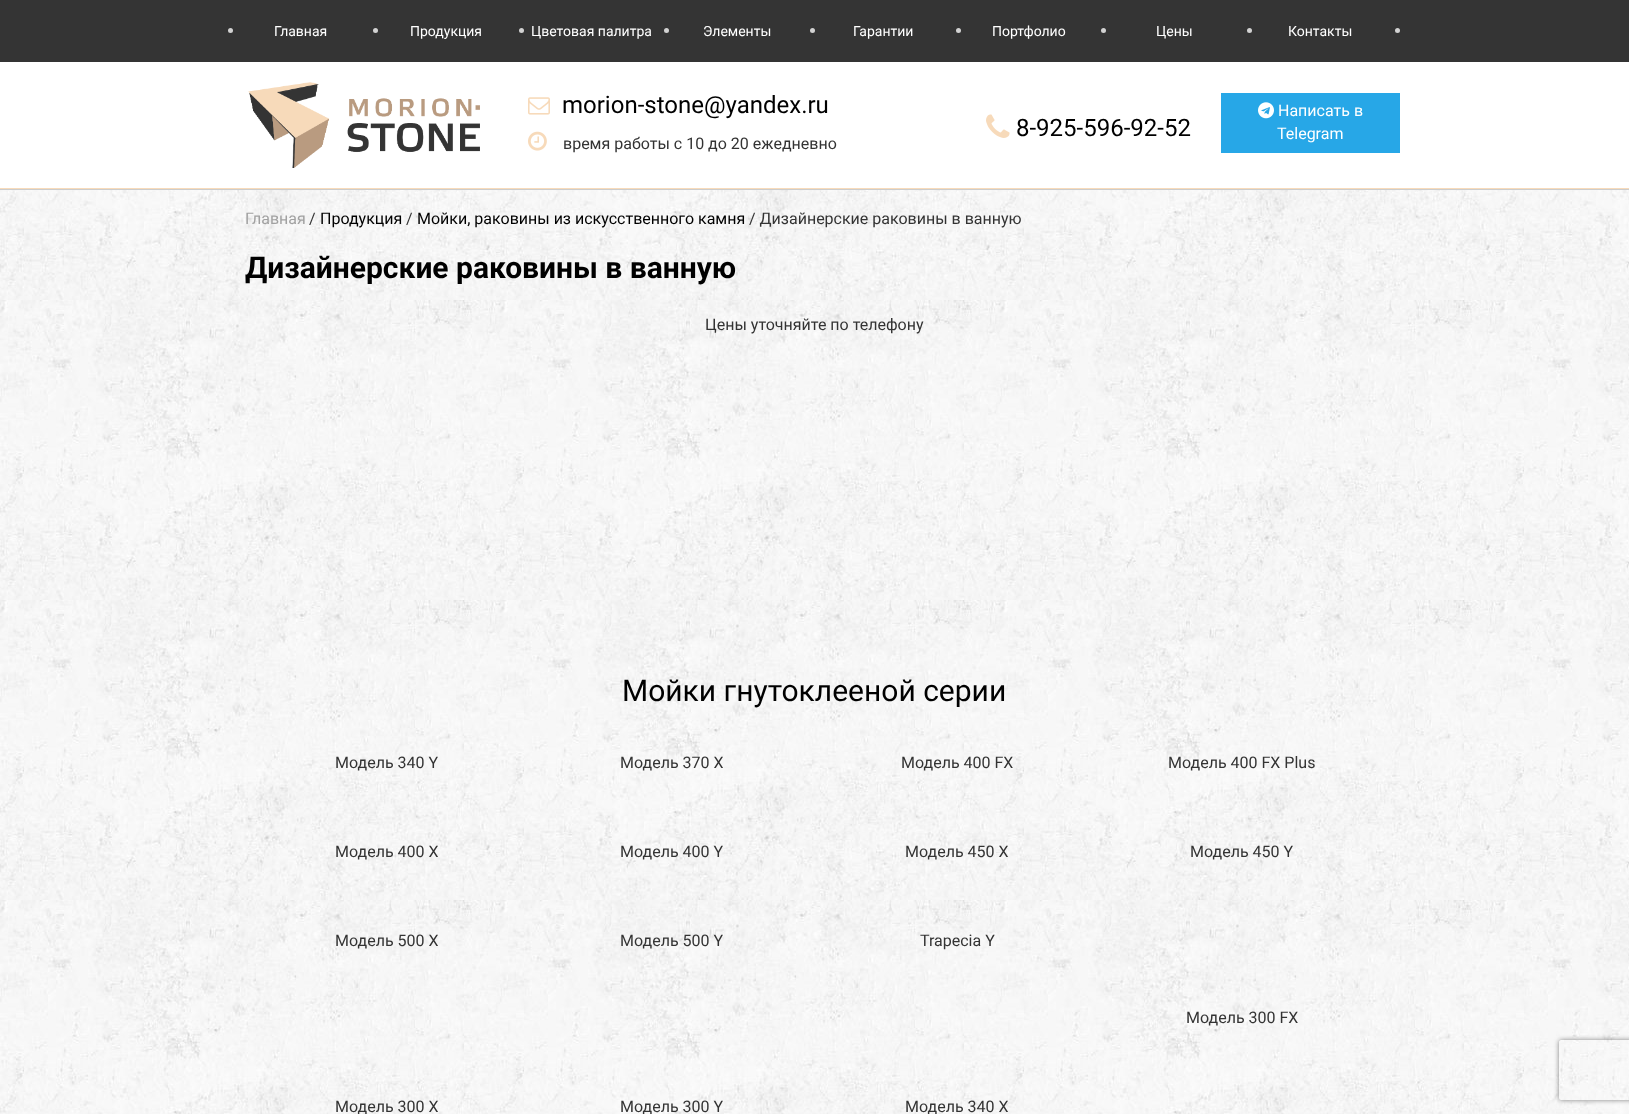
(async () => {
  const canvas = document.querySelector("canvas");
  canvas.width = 1629;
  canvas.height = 1114;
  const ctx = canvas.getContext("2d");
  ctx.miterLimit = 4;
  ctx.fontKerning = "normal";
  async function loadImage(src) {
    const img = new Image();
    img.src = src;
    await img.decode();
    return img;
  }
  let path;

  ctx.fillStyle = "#ffffff";
  ctx.fillRect(0, 0, 1629, 1114);
  ctx.drawImage(await loadImage("img/1.png"), 0, 190, 1629, 924);
  ctx.fillStyle = "#f7daba";
  ctx.fillRect(0, 188, 1629, 1);
  ctx.fillStyle = "#343434";
  ctx.fillRect(0, 0, 1629, 62);
  ctx.fillStyle = "#d2d2d2";
  ctx.beginPath();
  ctx.arc(230.5, 30.5, 2.5, 0, Math.PI * 2);
  ctx.fill();
  ctx.beginPath();
  ctx.arc(375.5, 30.5, 2.5, 0, Math.PI * 2);
  ctx.fill();
  ctx.beginPath();
  ctx.arc(521.5, 30.5, 2.5, 0, Math.PI * 2);
  ctx.fill();
  ctx.beginPath();
  ctx.arc(666.5, 30.5, 2.5, 0, Math.PI * 2);
  ctx.fill();
  ctx.beginPath();
  ctx.arc(812.5, 30.5, 2.5, 0, Math.PI * 2);
  ctx.fill();
  ctx.beginPath();
  ctx.arc(958.5, 30.5, 2.5, 0, Math.PI * 2);
  ctx.fill();
  ctx.beginPath();
  ctx.arc(1103.5, 30.5, 2.5, 0, Math.PI * 2);
  ctx.fill();
  ctx.beginPath();
  ctx.arc(1249.5, 30.5, 2.5, 0, Math.PI * 2);
  ctx.fill();
  ctx.beginPath();
  ctx.arc(1397.5, 30.5, 2.5, 0, Math.PI * 2);
  ctx.fill();
  ctx.drawImage(await loadImage("img/2.png"), 248, 82, 232, 86);
  ctx.drawImage(await loadImage("img/3.png"), 528, 97, 22, 18);
  ctx.drawImage(await loadImage("img/4.png"), 528, 131, 19, 20);
  ctx.drawImage(await loadImage("img/5.png"), 986, 114, 24, 24);
  ctx.fillStyle = "#27a7e7";
  ctx.fillRect(1221, 93, 179, 60);
  ctx.drawImage(await loadImage("img/6.png"), 1258, 102, 16, 17);
  ctx.fillStyle = "#cccccc";
  ctx.fillRect(0, 189, 1629, 1);
  ctx.save();
  path = new Path2D("M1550 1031H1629V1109H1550ZM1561 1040H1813C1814 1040 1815 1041 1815 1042V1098C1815 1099 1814 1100 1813 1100H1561C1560 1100 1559 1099 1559 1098V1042C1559 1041 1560 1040 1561 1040Z");
  ctx.clip(path, "evenodd");
  ctx.fillStyle = "#808080";
  ctx.filter = "blur(2.5px)";
  ctx.beginPath();
  ctx.roundRect(1559, 1040, 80, 60, 2);
  ctx.fill();
  ctx.filter = "none";
  ctx.restore();
  ctx.font = "14px Roboto";
  ctx.fillStyle = "#ffffff";
  for (const [text, x, y] of [
    ["Главная", 274, 36],
    ["Продукция", 410, 36],
    ["Цветовая палитра", 531, 36],
    ["Элементы", 703, 36],
    ["Гарантии", 853, 36],
    ["Портфолио", 992, 36],
    ["Цены", 1156, 36],
    ["Контакты", 1288, 36],
  ]) {
    ctx.fillText(text, x, y);
  }
  ctx.font = "24px Roboto";
  ctx.fillStyle = "#000000";
  ctx.fillText("morion-stone@yandex.ru", 562, 113);
  ctx.font = "16px Roboto";
  ctx.fillStyle = "#333333";
  ctx.fillText("время работы с 10 до 20 ежедневно", 563, 149);
  ctx.font = "24px Roboto";
  ctx.fillStyle = "#000000";
  ctx.fillText("8-925-596-92-52", 1016, 136);
  ctx.font = "16px Roboto";
  ctx.fillStyle = "#ffffff";
  ctx.fillText("Написать в", 1278, 116);
  ctx.fillText("Telegram", 1277, 139);
  ctx.fillStyle = "#a1a1a1";
  ctx.fillText("Главная", 245, 224);
  ctx.fillStyle = "#333333";
  ctx.fillText("/", 309, 224);
  ctx.fillStyle = "#000000";
  ctx.fillText("Продукция", 320, 224);
  ctx.fillStyle = "#333333";
  ctx.fillText("/", 406, 224);
  ctx.fillStyle = "#000000";
  ctx.fillText("Мойки, раковины из искусственного камня", 417, 224);
  ctx.fillStyle = "#333333";
  ctx.fillText("/ Дизайнерские раковины в ванную", 749, 224);
  ctx.font = "bold 30px Roboto";
  ctx.fillStyle = "#000000";
  ctx.fillText("Дизайнерские раковины в ванную", 245, 278);
  ctx.font = "16px Roboto";
  ctx.fillStyle = "#333333";
  ctx.fillText("Цены уточняйте по телефону", 705, 330);
  ctx.font = "30px Roboto";
  ctx.fillStyle = "#000000";
  ctx.fillText("Мойки гнутоклееной серии", 622, 701);
  ctx.font = "16px Roboto";
  ctx.fillStyle = "#333333";
  for (const [text, x, y] of [
    ["Модель 340 Y", 335, 768],
    ["Модель 370 X", 620, 768],
    ["Модель 400 FX", 901, 768],
    ["Модель 400 FX Plus", 1168, 768],
    ["Модель 400 X", 335, 857],
    ["Модель 400 Y", 620, 857],
    ["Модель 450 X", 905, 857],
    ["Модель 450 Y", 1190, 857],
    ["Модель 500 X", 335, 946],
    ["Модель 500 Y", 620, 946],
    ["Trapecia Y", 920, 946],
    ["Модель 300 FX", 1186, 1023],
    ["Модель 300 X", 335, 1112],
    ["Модель 300 Y", 620, 1112],
    ["Модель 340 X", 905, 1112],
  ]) {
    ctx.fillText(text, x, y);
  }
})();
